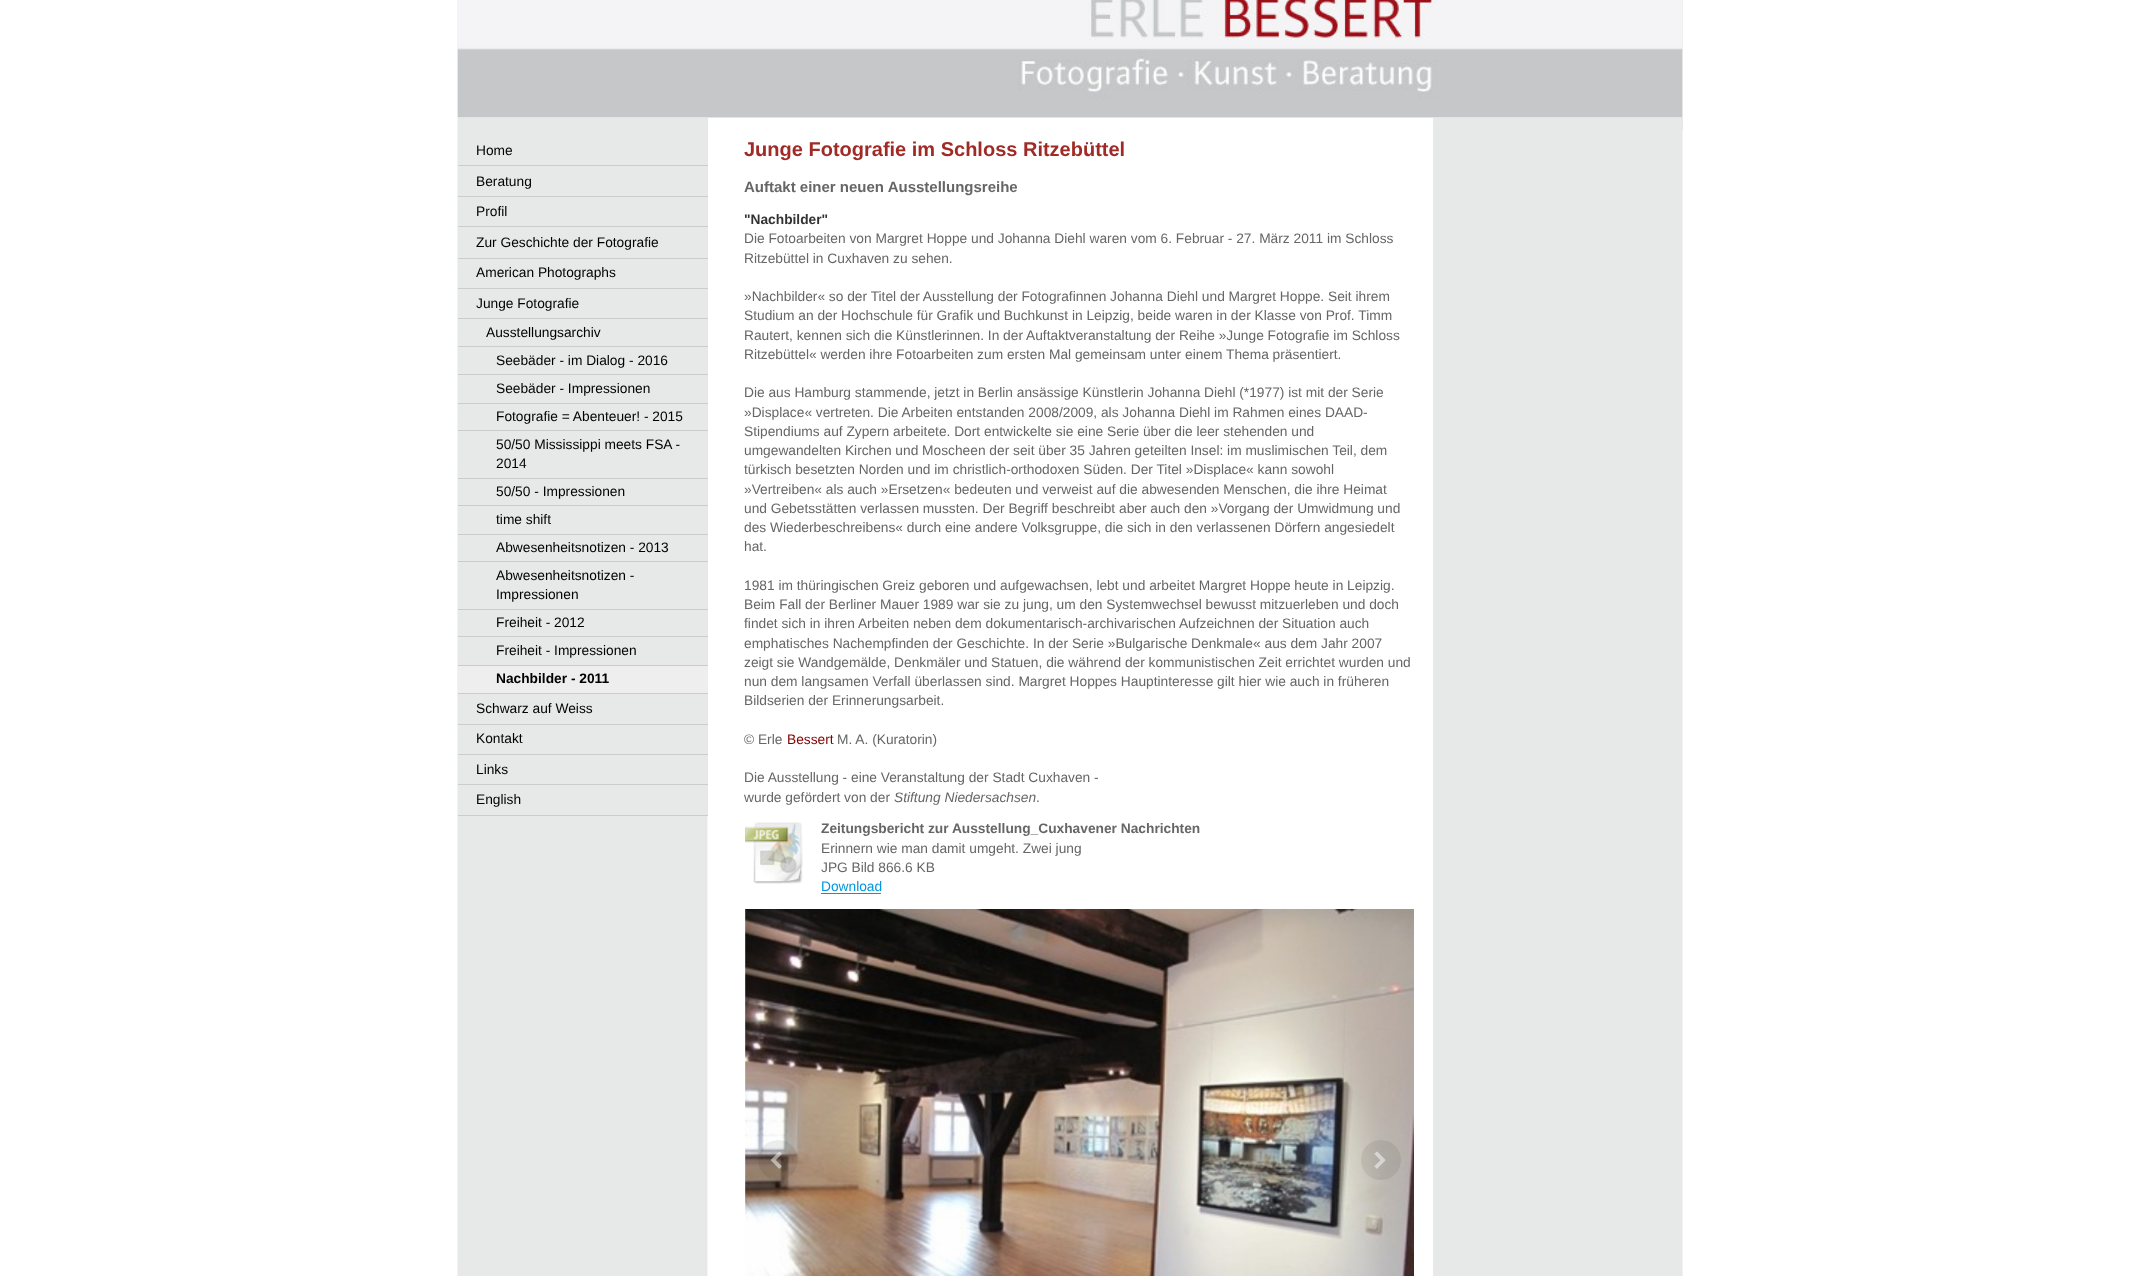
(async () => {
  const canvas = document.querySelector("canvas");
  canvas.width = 2138;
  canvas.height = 1276;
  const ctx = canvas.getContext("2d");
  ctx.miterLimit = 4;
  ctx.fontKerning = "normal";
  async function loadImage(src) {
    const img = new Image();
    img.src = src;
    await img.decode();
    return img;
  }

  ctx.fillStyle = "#ffffff";
  ctx.fillRect(0, 0, 2138, 1276);
  ctx.drawImage(await loadImage("img/1.png"), 457, 0, 1226, 1276);
  ctx.fillStyle = "#eeeeee";
  ctx.fillRect(458, 0, 1225, 118);
  ctx.drawImage(await loadImage("img/2.png"), 457, 0, 1226, 118);
  for (const [x, y, w, h, color] of [
    [1682, 118, 1, 12, "#e5e8e6"],
    [707, 118, 1, 697, "#e5e8e6"],
    [458, 165, 250, 1, "#cccccc"],
    [458, 196, 250, 1, "#cccccc"],
    [458, 226, 250, 1, "#cccccc"],
    [458, 258, 250, 1, "#cccccc"],
    [458, 288, 250, 1, "#cccccc"],
    [458, 318, 250, 1, "#cccccc"],
    [458, 346, 250, 1, "#cccccc"],
    [458, 374, 250, 1, "#cccccc"],
    [458, 403, 250, 1, "#cccccc"],
    [458, 430, 250, 1, "#cccccc"],
    [458, 478, 250, 1, "#cccccc"],
    [458, 505, 250, 1, "#cccccc"],
    [458, 534, 250, 1, "#cccccc"],
    [458, 561, 250, 1, "#cccccc"],
    [458, 609, 250, 1, "#cccccc"],
    [458, 636, 250, 1, "#cccccc"],
    [458, 665, 250, 1, "#cccccc"],
    [458, 666, 250, 27, "#eeeeee"],
    [458, 693, 250, 1, "#cccccc"],
    [458, 724, 250, 1, "#cccccc"],
    [458, 754, 250, 1, "#cccccc"],
    [458, 784, 250, 1, "#cccccc"],
    [458, 815, 250, 1, "#cccccc"],
    [1432, 118, 1, 1158, "#ffffff"],
  ]) {
    ctx.fillStyle = color;
    ctx.fillRect(x, y, w, h);
  }
  ctx.drawImage(await loadImage("img/3.png"), 745, 822, 58, 62);
  ctx.fillStyle = "#0097df";
  ctx.fillRect(821, 893, 60, 1);
  ctx.drawImage(await loadImage("img/4.png"), 745, 909, 669, 367);
  ctx.fillStyle = "rgba(0, 0, 0, 0.07)";
  ctx.beginPath();
  ctx.arc(778, 1160, 20, 0, Math.PI * 2);
  ctx.fill();
  ctx.drawImage(await loadImage("img/5.png"), 770, 1151, 12, 18);
  ctx.beginPath();
  ctx.arc(1381, 1160, 20, 0, Math.PI * 2);
  ctx.fill();
  ctx.drawImage(await loadImage("img/6.png"), 1374, 1151, 12, 18);
  ctx.font = "13.75px Liberation Sans";
  ctx.fillStyle = "#000000";
  for (const [text, x, y] of [
    ["Home", 476, 155],
    ["Beratung", 476, 186],
    ["Profil", 476, 216],
    ["Zur Geschichte der Fotografie", 476, 247],
    ["American Photographs", 476, 277],
    ["Junge Fotografie", 476, 308],
    ["Ausstellungsarchiv", 486, 337],
    ["Seebäder - im Dialog - 2016", 496, 365],
    ["Seebäder - Impressionen", 496, 393],
    ["Fotografie = Abenteuer! - 2015", 496, 421],
    ["50/50 Mississippi meets FSA -", 496, 449],
    ["2014", 496, 468],
    ["50/50 - Impressionen", 496, 496],
    ["time shift", 496, 524],
    ["Abwesenheitsnotizen - 2013", 496, 552],
    ["Abwesenheitsnotizen -", 496, 580],
    ["Impressionen", 496, 599],
    ["Freiheit - 2012", 496, 627],
    ["Freiheit - Impressionen", 496, 655],
  ]) {
    ctx.fillText(text, x, y);
  }
  ctx.font = "bold 13.75px Liberation Sans";
  ctx.fillText("Nachbilder - 2011", 496, 683);
  ctx.font = "13.75px Liberation Sans";
  for (const [text, x, y] of [
    ["Schwarz auf Weiss", 476, 713],
    ["Kontakt", 476, 743],
    ["Links", 476, 774],
    ["English", 476, 804],
  ]) {
    ctx.fillText(text, x, y);
  }
  ctx.font = "bold 20px Liberation Sans";
  ctx.fillStyle = "#a02b26";
  ctx.fillText("Junge Fotografie im Schloss Ritzebüttel", 744, 156);
  ctx.font = "bold 15px Liberation Sans";
  ctx.fillStyle = "#666666";
  ctx.fillText("Auftakt einer neuen Ausstellungsreihe", 744, 192);
  ctx.font = "bold 13.75px Liberation Sans";
  ctx.fillStyle = "#333333";
  ctx.fillText("\"Nachbilder\"", 744, 224);
  ctx.font = "13.75px Liberation Sans";
  ctx.fillStyle = "#666666";
  for (const [text, x, y] of [
    ["Die Fotoarbeiten von Margret Hoppe und Johanna Diehl waren vom 6. Februar - 27. März 2011 im Schloss", 744, 243],
    ["Ritzebüttel in Cuxhaven zu sehen.", 744, 263],
    ["»Nachbilder« so der Titel der Ausstellung der Fotografinnen Johanna Diehl und Margret Hoppe. Seit ihrem", 744, 301],
    ["Studium an der Hochschule für Grafik und Buchkunst in Leipzig, beide waren in der Klasse von Prof. Timm", 744, 320],
    ["Rautert, kennen sich die Künstlerinnen. In der Auftaktveranstaltung der Reihe »Junge Fotografie im Schloss", 744, 340],
    ["Ritzebüttel« werden ihre Fotoarbeiten zum ersten Mal gemeinsam unter einem Thema präsentiert.", 744, 359],
    ["Die aus Hamburg stammende, jetzt in Berlin ansässige Künstlerin Johanna Diehl (*1977) ist mit der Serie", 744, 397],
    ["»Displace« vertreten. Die Arbeiten entstanden 2008/2009, als Johanna Diehl im Rahmen eines DAAD-", 744, 417],
    ["Stipendiums auf Zypern arbeitete. Dort entwickelte sie eine Serie über die leer stehenden und", 744, 436],
    ["umgewandelten Kirchen und Moscheen der seit über 35 Jahren geteilten Insel: im muslimischen Teil, dem", 744, 455],
    ["türkisch besetzten Norden und im christlich-orthodoxen Süden. Der Titel »Displace« kann sowohl", 744, 474],
    ["»Vertreiben« als auch »Ersetzen« bedeuten und verweist auf die abwesenden Menschen, die ihre Heimat", 744, 494],
    ["und Gebetsstätten verlassen mussten. Der Begriff beschreibt aber auch den »Vorgang der Umwidmung und", 744, 513],
    ["des Wiederbeschreibens« durch eine andere Volksgruppe, die sich in den verlassenen Dörfern angesiedelt", 744, 532],
    ["hat.", 744, 551],
    ["1981 im thüringischen Greiz geboren und aufgewachsen, lebt und arbeitet Margret Hoppe heute in Leipzig.", 744, 590],
    ["Beim Fall der Berliner Mauer 1989 war sie zu jung, um den Systemwechsel bewusst mitzuerleben und doch", 744, 609],
    ["findet sich in ihren Arbeiten neben dem dokumentarisch-archivarischen Aufzeichnen der Situation auch", 744, 628],
    ["emphatisches Nachempfinden der Geschichte. In der Serie »Bulgarische Denkmale« aus dem Jahr 2007", 744, 648],
    ["zeigt sie Wandgemälde, Denkmäler und Statuen, die während der kommunistischen Zeit errichtet wurden und", 744, 667],
    ["nun dem langsamen Verfall überlassen sind. Margret Hoppes Hauptinteresse gilt hier wie auch in früheren", 744, 686],
    ["Bildserien der Erinnerungsarbeit.", 744, 705],
    ["© Erle", 744, 744],
  ]) {
    ctx.fillText(text, x, y);
  }
  ctx.fillStyle = "#800000";
  ctx.fillText("Bessert", 787, 744);
  ctx.fillStyle = "#666666";
  for (const [text, x, y] of [
    ["M. A. (Kuratorin)", 837, 744],
    ["Die Ausstellung - eine Veranstaltung der Stadt Cuxhaven -", 744, 782],
    ["wurde gefördert von der", 744, 802],
  ]) {
    ctx.fillText(text, x, y);
  }
  ctx.font = "italic 13.75px Liberation Sans";
  ctx.fillText("Stiftung Niedersachsen", 894, 802);
  ctx.font = "13.75px Liberation Sans";
  ctx.fillText(".", 1036, 802);
  ctx.font = "bold 13.75px Liberation Sans";
  ctx.fillText("Zeitungsbericht zur Ausstellung_Cuxhavener Nachrichten", 821, 833);
  ctx.font = "13.75px Liberation Sans";
  ctx.fillText("Erinnern wie man damit umgeht. Zwei jung", 821, 853);
  ctx.fillText("JPG Bild 866.6 KB", 821, 872);
  ctx.fillStyle = "#0097df";
  ctx.fillText("Download", 821, 891);
})();
